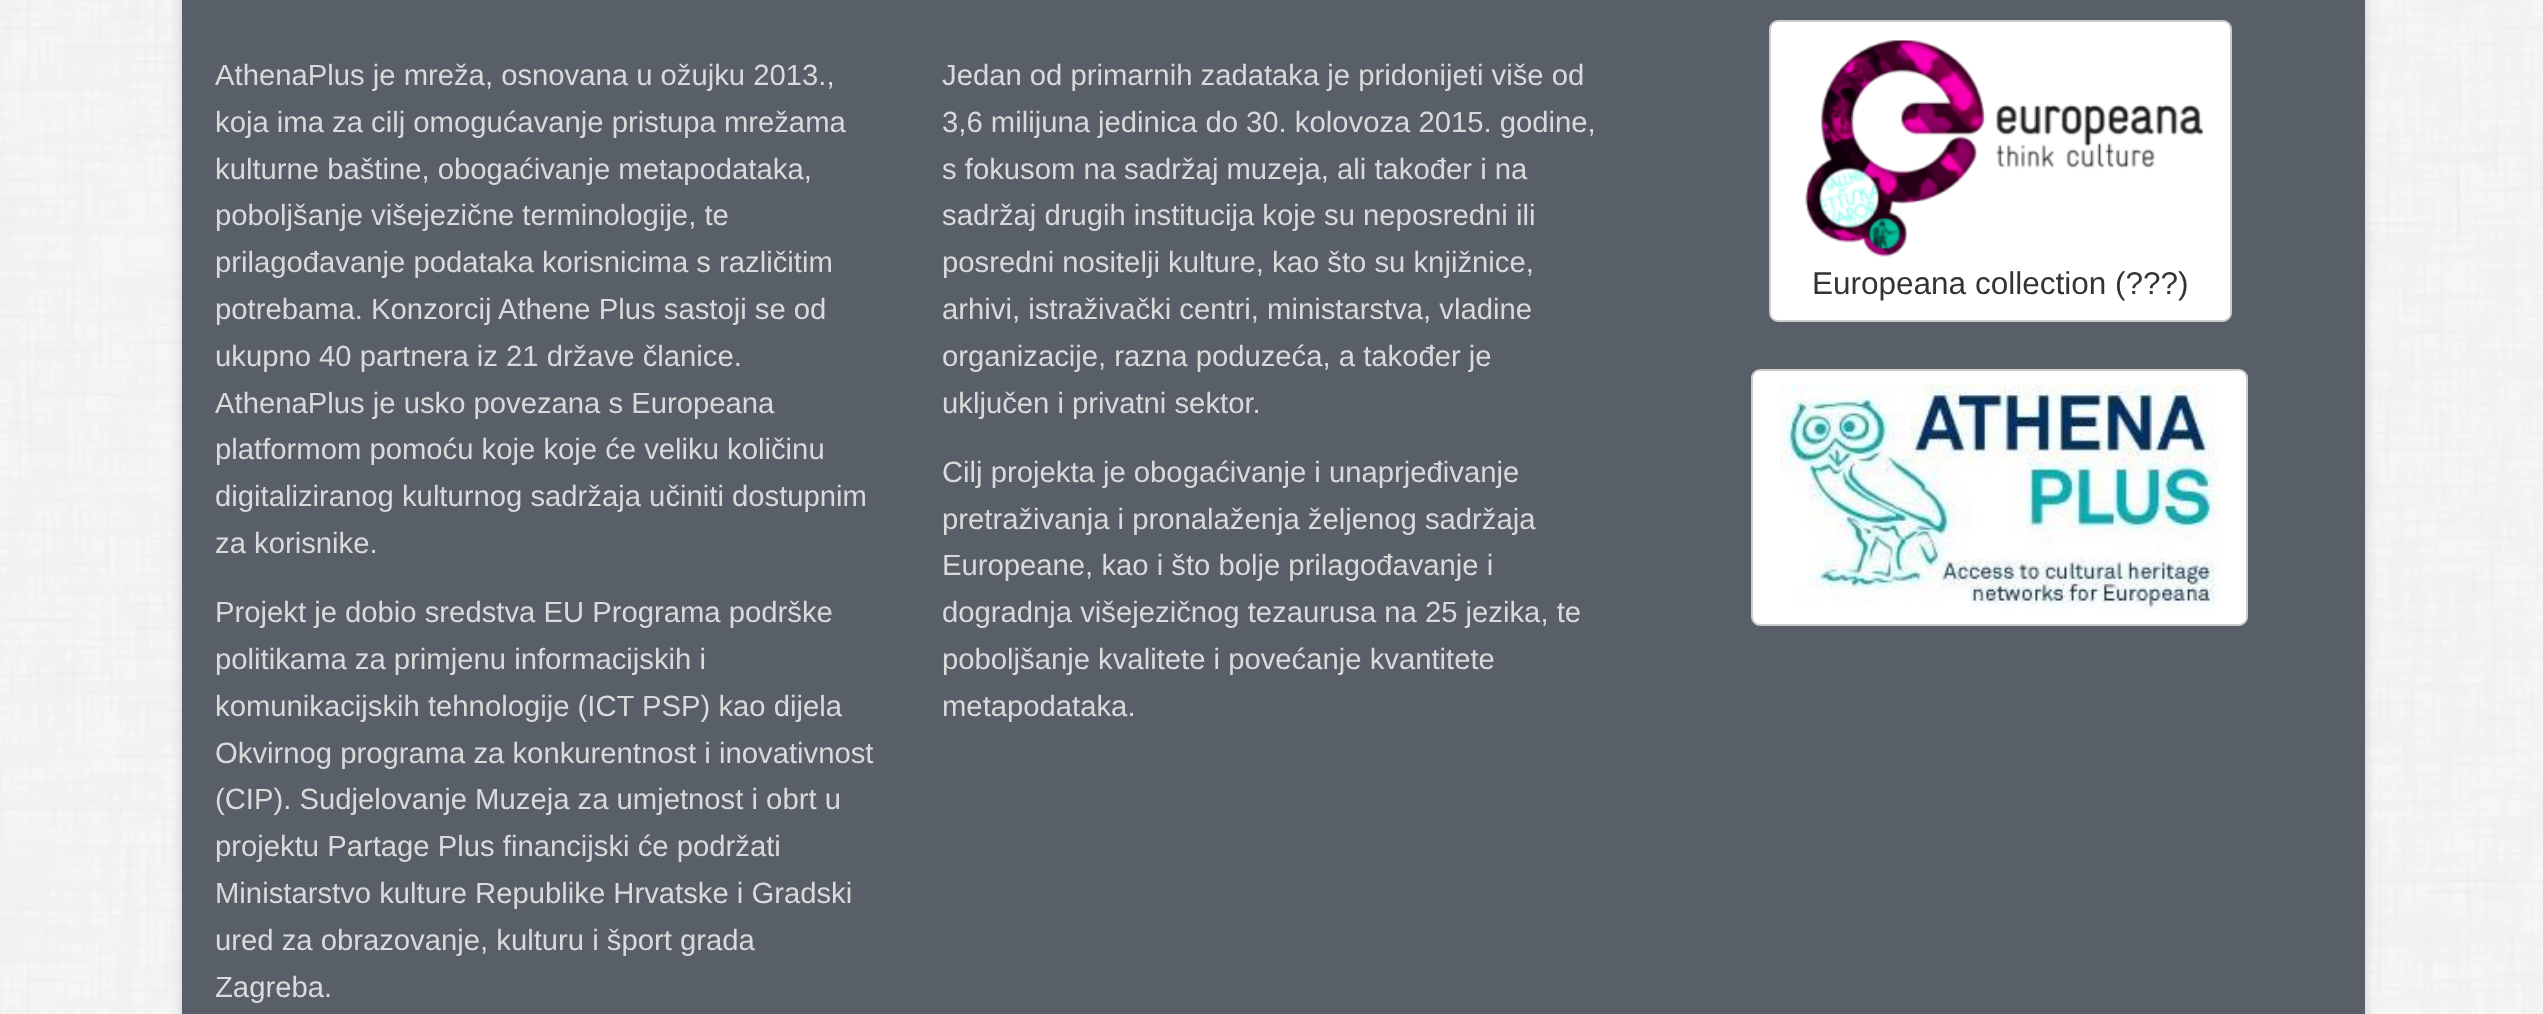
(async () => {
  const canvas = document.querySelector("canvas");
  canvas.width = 2543;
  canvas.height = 1014;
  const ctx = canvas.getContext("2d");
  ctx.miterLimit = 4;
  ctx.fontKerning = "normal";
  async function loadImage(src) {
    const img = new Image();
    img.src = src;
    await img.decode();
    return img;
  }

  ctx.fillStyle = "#ffffff";
  ctx.fillRect(0, 0, 2543, 1014);
  ctx.drawImage(await loadImage("img/1.png"), 0, 0, 2543, 1014);
  ctx.fillStyle = "#cccccc";
  ctx.filter = "blur(5.5px)";
  ctx.beginPath();
  ctx.rect(182, -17, 2183, 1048);
  ctx.fill();
  ctx.filter = "none";
  ctx.fillStyle = "#585f69";
  ctx.fillRect(182, 0, 2183, 1014);
  ctx.fillStyle = "#ffffff";
  ctx.beginPath();
  ctx.roundRect(1770, 21, 461, 300, 8);
  ctx.fill();
  ctx.strokeStyle = "#cccccc";
  ctx.lineWidth = 2;
  ctx.stroke();
  ctx.drawImage(await loadImage("img/2.png"), 1805, 40, 398, 217);
  ctx.beginPath();
  ctx.roundRect(1752, 370, 495, 255, 8);
  ctx.fill();
  ctx.stroke();
  ctx.drawImage(await loadImage("img/3.png"), 1780, 384, 439, 226);
  ctx.font = "29.25px Liberation Sans";
  ctx.fillStyle = "#dadada";
  for (const [text, x, y] of [
    ["AthenaPlus je mreža, osnovana u ožujku 2013.,", 215, 85],
    ["koja ima za cilj omogućavanje pristupa mrežama", 215, 132],
    ["kulturne baštine, obogaćivanje metapodataka,", 215, 179],
    ["poboljšanje višejezične terminologije, te", 215, 225],
    ["prilagođavanje podataka korisnicima s različitim", 215, 272],
    ["potrebama. Konzorcij Athene Plus sastoji se od", 215, 319],
    ["ukupno 40 partnera iz 21 države članice.", 215, 366],
    ["AthenaPlus je usko povezana s Europeana", 215, 413],
    ["platformom pomoću koje koje će veliku količinu", 215, 459],
    ["digitaliziranog kulturnog sadržaja učiniti dostupnim", 215, 506],
    ["za korisnike.", 215, 553],
    ["Projekt je dobio sredstva EU Programa podrške", 215, 622],
    ["politikama za primjenu informacijskih i", 215, 669],
    ["komunikacijskih tehnologije (ICT PSP) kao dijela", 215, 716],
    ["Okvirnog programa za konkurentnost i inovativnost", 215, 763],
    ["(CIP). Sudjelovanje Muzeja za umjetnost i obrt u", 215, 809],
    ["projektu Partage Plus financijski će podržati", 215, 856],
    ["Ministarstvo kulture Republike Hrvatske i Gradski", 215, 903],
    ["ured za obrazovanje, kulturu i šport grada", 215, 950],
    ["Zagreba.", 215, 997],
    ["Jedan od primarnih zadataka je pridonijeti više od", 942, 85],
    ["3,6 milijuna jedinica do 30. kolovoza 2015. godine,", 942, 132],
    ["s fokusom na sadržaj muzeja, ali također i na", 942, 179],
    ["sadržaj drugih institucija koje su neposredni ili", 942, 225],
    ["posredni nositelji kulture, kao što su knjižnice,", 942, 272],
    ["arhivi, istraživački centri, ministarstva, vladine", 942, 319],
    ["organizacije, razna poduzeća, a također je", 942, 366],
    ["uključen i privatni sektor.", 942, 413],
    ["Cilj projekta je obogaćivanje i unaprjeđivanje", 942, 482],
    ["pretraživanja i pronalaženja željenog sadržaja", 942, 529],
    ["Europeane, kao i što bolje prilagođavanje i", 942, 575],
    ["dogradnja višejezičnog tezaurusa na 25 jezika, te", 942, 622],
    ["poboljšanje kvalitete i povećanje kvantitete", 942, 669],
    ["metapodataka.", 942, 716],
  ]) {
    ctx.fillText(text, x, y);
  }
  ctx.font = "31.5px Liberation Sans";
  ctx.fillStyle = "#333333";
  ctx.fillText("Europeana collection (???)", 1812, 294);
})();
